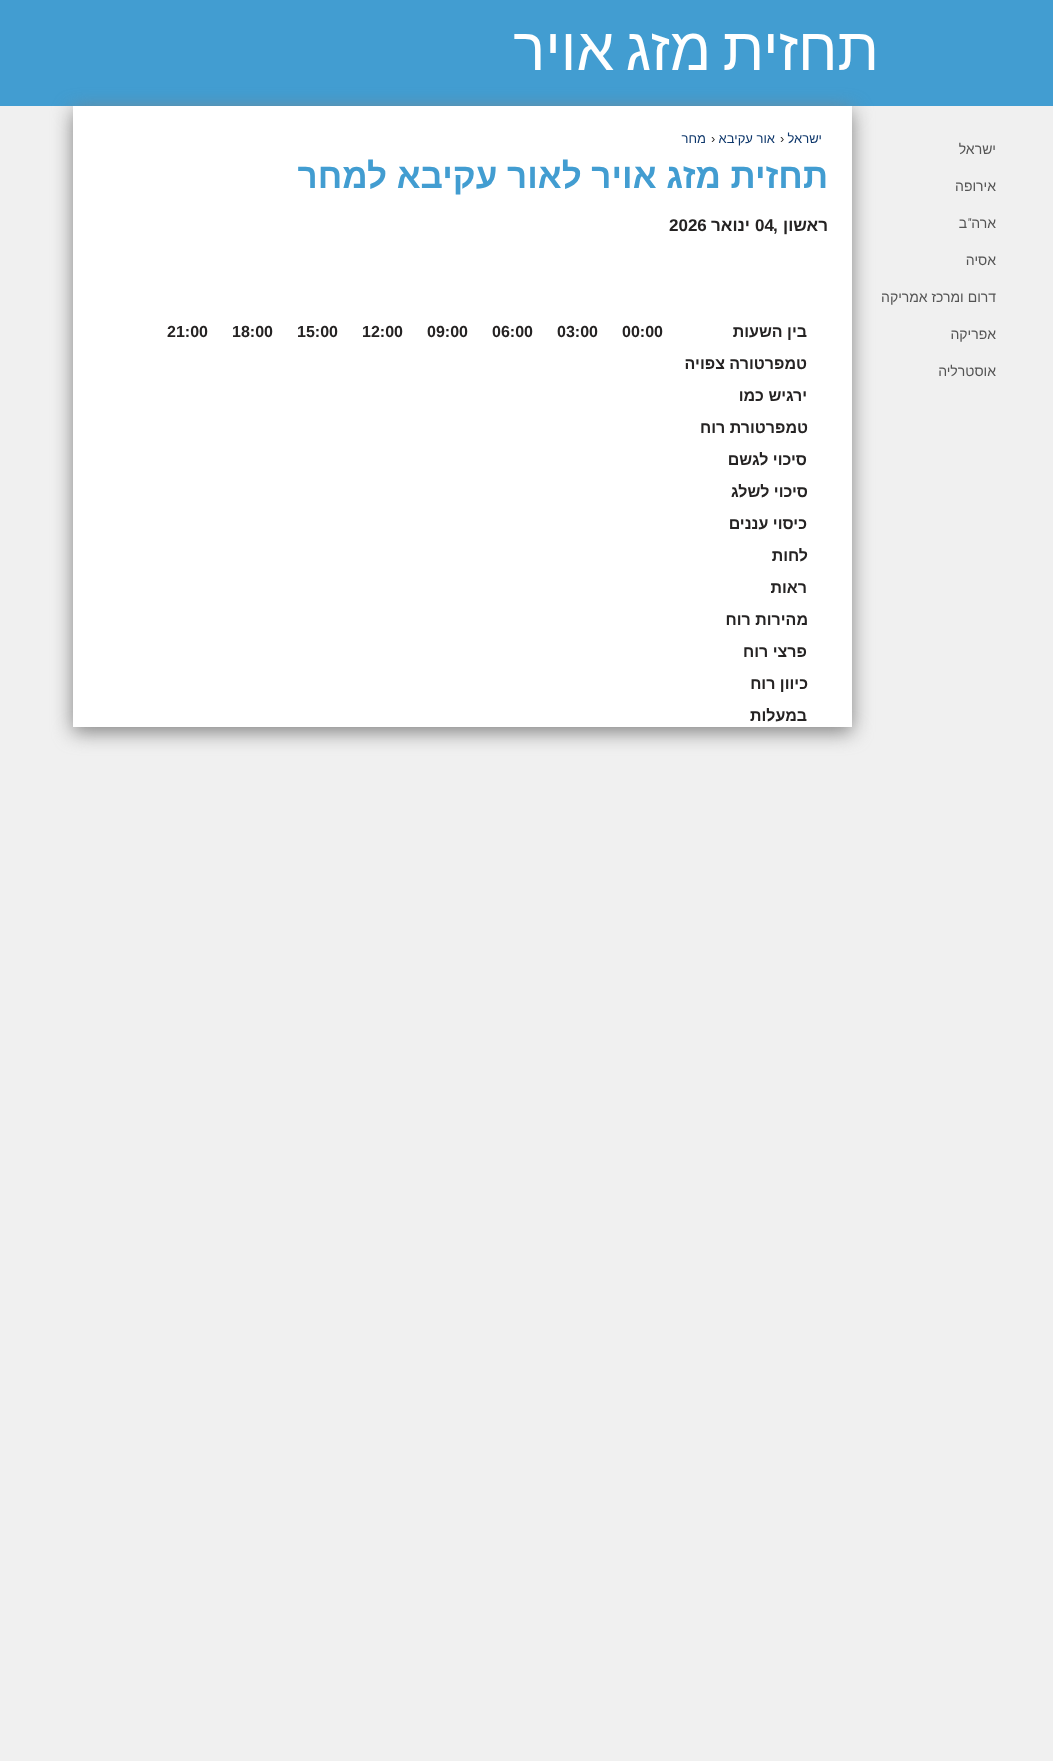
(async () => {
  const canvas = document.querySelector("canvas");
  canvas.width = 1053;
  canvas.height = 1761;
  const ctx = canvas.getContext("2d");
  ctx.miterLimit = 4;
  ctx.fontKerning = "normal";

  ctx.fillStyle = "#f0f0f0";
  ctx.fillRect(0, 0, 1053, 1761);
  ctx.fillStyle = "#429dd1";
  ctx.fillRect(0, 0, 1053, 106);
  ctx.fillStyle = "#808080";
  ctx.filter = "blur(10px)";
  ctx.beginPath();
  ctx.rect(73, 111, 779, 621);
  ctx.fill();
  ctx.filter = "none";
  ctx.fillStyle = "#ffffff";
  ctx.fillRect(73, 106, 779, 621);
  ctx.wordSpacing = "-5px";
  ctx.direction = "rtl";
  ctx.font = "60px Liberation Sans";
  ctx.fillText("תחזית מזג אויר", 879, 70);
  ctx.wordSpacing = "0px";
  ctx.font = "14px Liberation Sans";
  ctx.fillStyle = "#545454";
  for (const [text, x, y] of [
    ["ישראל", 996, 154],
    ["אירופה", 996, 191],
    ["ארה", 996, 228],
  ]) {
    ctx.fillText(text, x, y);
  }
  ctx.font = "14px PT Sans";
  ctx.fillText("\"", 972, 228);
  ctx.font = "14px Liberation Sans";
  for (const [text, x, y] of [
    ["ב", 967, 228],
    ["אסיה", 996, 265],
    ["דרום ומרכז אמריקה", 996, 302],
    ["אפריקה", 996, 339],
    ["אוסטרליה", 996, 376],
  ]) {
    ctx.fillText(text, x, y);
  }
  ctx.font = "13px Liberation Sans";
  ctx.fillStyle = "#0e376b";
  ctx.fillText("ישראל", 822, 143);
  ctx.direction = "ltr";
  ctx.fillStyle = "#252323";
  ctx.fillText("›", 780, 143);
  ctx.direction = "rtl";
  ctx.fillStyle = "#0e376b";
  ctx.fillText("אור עקיבא", 775, 143);
  ctx.direction = "ltr";
  ctx.fillStyle = "#252323";
  ctx.fillText("›", 711, 143);
  ctx.direction = "rtl";
  ctx.fillStyle = "#0e376b";
  ctx.fillText("מחר", 706, 143);
  ctx.font = "bold 35px Liberation Sans";
  ctx.fillStyle = "#429dd1";
  ctx.fillText("תחזית מזג אויר לאור עקיבא למחר", 828, 188);
  ctx.font = "bold 17px Liberation Sans";
  ctx.fillStyle = "#252323";
  ctx.fillText("ראשון", 828, 231);
  ctx.direction = "ltr";
  ctx.fillText(",", 773, 231);
  ctx.fillText("04", 755, 231);
  ctx.direction = "rtl";
  ctx.fillText("ינואר", 750, 231);
  ctx.direction = "ltr";
  ctx.fillText("2026", 669, 231);
  ctx.direction = "rtl";
  ctx.font = "bold 16px Liberation Sans";
  for (const [text, x, y] of [
    ["בין השעות", 807, 337],
    ["טמפרטורה צפויה", 807, 369],
    ["ירגיש כמו", 807, 401],
    ["טמפרטורת רוח", 808, 433],
    ["סיכוי לגשם", 807, 465],
    ["סיכוי לשלג", 808, 497],
    ["כיסוי עננים", 807, 529],
    ["לחות", 808, 561],
    ["ראות", 807, 593],
    ["מהירות רוח", 808, 625],
    ["פרצי רוח", 807, 657],
    ["כיוון רוח", 808, 689],
    ["במעלות", 807, 721],
  ]) {
    ctx.fillText(text, x, y);
  }
  ctx.direction = "ltr";
  for (const [text, x, y] of [
    ["00:00", 622, 337],
    ["03:00", 557, 337],
    ["06:00", 492, 337],
    ["09:00", 427, 337],
    ["12:00", 362, 337],
    ["15:00", 297, 337],
    ["18:00", 232, 337],
    ["21:00", 167, 337],
  ]) {
    ctx.fillText(text, x, y);
  }
})();
